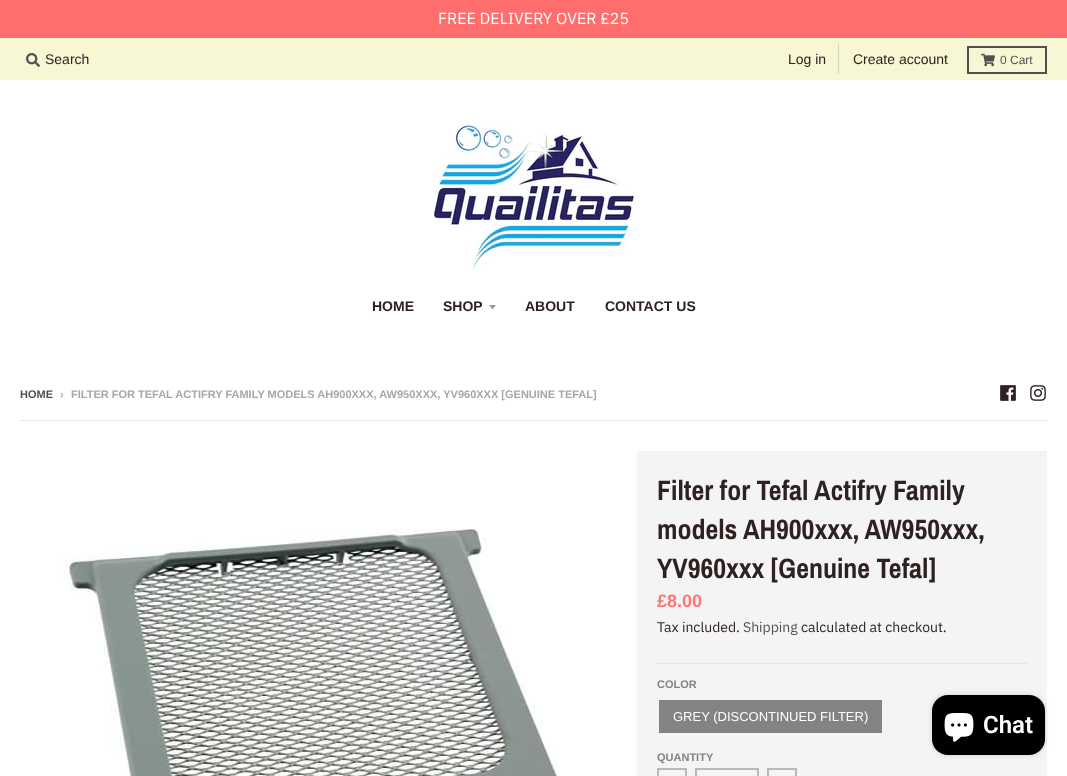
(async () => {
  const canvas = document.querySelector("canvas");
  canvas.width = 1067;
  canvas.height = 776;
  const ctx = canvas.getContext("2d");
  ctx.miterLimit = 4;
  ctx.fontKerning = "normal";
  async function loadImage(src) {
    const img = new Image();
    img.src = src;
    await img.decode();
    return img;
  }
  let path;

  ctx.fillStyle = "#ffffff";
  ctx.fillRect(0, 0, 1067, 776);
  ctx.fillStyle = "#ff6d6d";
  ctx.fillRect(0, 0, 1067, 38);
  ctx.fillStyle = "#f8f7d3";
  ctx.fillRect(0, 38, 1067, 42);
  ctx.drawImage(await loadImage("img/1.png"), 26, 53, 14, 14);
  ctx.fillStyle = "#d6d5b8";
  ctx.fillRect(838, 44, 1, 30);
  ctx.strokeStyle = "#505050";
  ctx.lineWidth = 2;
  ctx.strokeRect(968, 47, 78, 26);
  ctx.drawImage(await loadImage("img/2.png"), 981, 53, 14, 14);
  ctx.drawImage(await loadImage("img/3.png"), 434, 120, 200, 148);
  ctx.fillStyle = "#999999";
  path = new Path2D("M489 305C493.5 310.5 491.5 310.5 496 305Z");
  ctx.fill(path);
  ctx.drawImage(await loadImage("img/4.png"), 1000, 385, 16, 16);
  ctx.drawImage(await loadImage("img/5.png"), 1030, 385, 16, 16);
  ctx.fillStyle = "#e5e5e5";
  ctx.fillRect(20, 420, 1027, 1);
  ctx.drawImage(await loadImage("img/6.png"), 63, 529, 496, 247);
  for (const [x, y, w, h, color] of [
    [637, 451, 410, 325, "#f4f4f4"],
    [657, 663, 370, 1, "#e5e5e5"],
    [659, 700, 223, 33, "#838383"],
  ]) {
    ctx.fillStyle = color;
    ctx.fillRect(x, y, w, h);
  }
  ctx.strokeStyle = "#b8b8b8";
  ctx.strokeRect(658, 769, 28, 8);
  ctx.strokeRect(696, 769, 62, 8);
  ctx.strokeRect(768, 769, 28, 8);
  ctx.fillStyle = "rgba(0, 0, 0, 0.15)";
  ctx.filter = "blur(2.5px)";
  ctx.beginPath();
  ctx.roundRect(932, 695, 113, 60, 16);
  ctx.fill();
  ctx.filter = "none";
  ctx.fillStyle = "#000000";
  ctx.beginPath();
  ctx.roundRect(932, 695, 113, 60, 16);
  ctx.fill();
  ctx.drawImage(await loadImage("img/7.png"), 944, 713, 30, 29);
  ctx.font = "16px IBM Plex Sans";
  ctx.fillStyle = "#ffffff";
  ctx.fillText("FREE DELIVERY OVER £25", 438, 24);
  ctx.font = "14px Arimo";
  ctx.fillStyle = "#2f2121";
  for (const [text, x, y] of [
    ["Search", 45, 64],
    ["Log in", 788, 64],
    ["Create account", 853, 64],
  ]) {
    ctx.fillText(text, x, y);
  }
  ctx.font = "12px Arimo";
  ctx.fillStyle = "#4f4f4f";
  ctx.fillText("0 Cart", 1000, 64);
  ctx.font = "bold 14px Arimo";
  ctx.fillStyle = "#2f2121";
  for (const [text, x, y] of [
    ["HOME", 372, 311],
    ["SHOP", 443, 311],
    ["ABOUT", 525, 311],
    ["CONTACT US", 605, 311],
  ]) {
    ctx.fillText(text, x, y);
  }
  ctx.font = "bold 11px Arimo";
  ctx.fillStyle = "#4f4f4f";
  ctx.fillText("HOME", 20, 398);
  ctx.fillStyle = "#a7a7a7";
  ctx.fillText("›", 60, 398);
  ctx.fillText("FILTER FOR TEFAL ACTIFRY FAMILY MODELS AH900XXX, AW950XXX, YV960XXX [GENUINE TEFAL]", 71, 398);
  ctx.font = "bold 28px Archivo Narrow";
  ctx.fillStyle = "#2f2121";
  for (const [text, x, y] of [
    ["Filter for Tefal Actifry Family", 657, 500],
    ["models AH900xxx, AW950xxx,", 657, 539],
    ["YV960xxx [Genuine Tefal]", 657, 578],
  ]) {
    ctx.fillText(text, x, y);
  }
  ctx.font = "bold 18px Arimo";
  ctx.fillStyle = "#ff7575";
  ctx.fillText("£8.00", 657, 607);
  ctx.font = "14px IBM Plex Sans";
  ctx.fillStyle = "#2f2121";
  ctx.fillText("Tax included.", 657, 632);
  ctx.fillStyle = "#4f4f4f";
  ctx.fillText("Shipping", 743, 632);
  ctx.fillStyle = "#2f2121";
  ctx.fillText("calculated at checkout.", 801, 632);
  ctx.font = "bold 11px Arimo";
  ctx.fillStyle = "#838383";
  ctx.fillText("COLOR", 657, 688);
  ctx.font = "13px Arimo";
  ctx.fillStyle = "#ffffff";
  ctx.fillText("GREY (DISCONTINUED FILTER)", 673, 721);
  ctx.font = "bold 11px Arimo";
  ctx.fillStyle = "#838383";
  ctx.fillText("QUANTITY", 657, 761);
  ctx.font = "600 24px Roboto";
  ctx.fillStyle = "#ffffff";
  ctx.fillText("Chat", 983, 733);
})();
